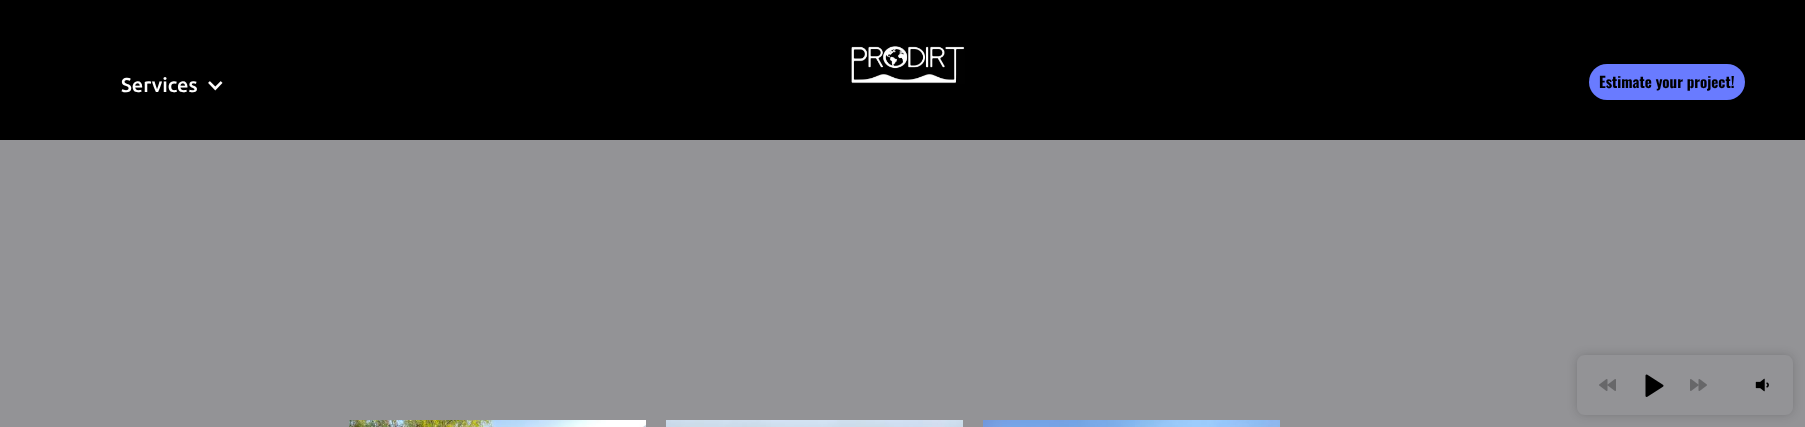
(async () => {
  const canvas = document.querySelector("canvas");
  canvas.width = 1805;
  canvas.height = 427;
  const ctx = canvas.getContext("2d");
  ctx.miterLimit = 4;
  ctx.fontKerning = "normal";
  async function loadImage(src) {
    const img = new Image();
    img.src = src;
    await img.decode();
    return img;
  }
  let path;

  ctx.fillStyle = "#939396";
  ctx.fillRect(0, 0, 1805, 427);
  ctx.fillStyle = "#000000";
  ctx.fillRect(0, 0, 1805, 140);
  ctx.drawImage(await loadImage("img/1.png"), 208, 81, 15, 10);
  ctx.drawImage(await loadImage("img/2.png"), 851, 46, 114, 38);
  ctx.fillStyle = "#697bff";
  ctx.beginPath();
  ctx.roundRect(1589, 64, 156, 36, 18);
  ctx.fill();
  ctx.drawImage(await loadImage("img/3.png"), 349, 420, 297, 7);
  ctx.drawImage(await loadImage("img/4.png"), 666, 420, 297, 7);
  ctx.drawImage(await loadImage("img/5.png"), 983, 420, 297, 7);
  ctx.save();
  path = new Path2D("M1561 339H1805V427H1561ZM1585 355H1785C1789.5 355 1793 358.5 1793 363V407C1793 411.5 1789.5 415 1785 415H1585C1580.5 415 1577 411.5 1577 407V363C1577 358.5 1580.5 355 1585 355Z");
  ctx.clip(path, "evenodd");
  ctx.fillStyle = "rgba(17, 17, 17, 0.2)";
  ctx.filter = "blur(5px)";
  ctx.beginPath();
  ctx.roundRect(1577, 355, 216, 60, 8);
  ctx.fill();
  ctx.filter = "none";
  ctx.restore();
  ctx.drawImage(await loadImage("img/6.png"), 1599, 379, 17, 12);
  ctx.drawImage(await loadImage("img/7.png"), 1645, 374, 19, 23);
  ctx.drawImage(await loadImage("img/8.png"), 1690, 379, 17, 12);
  ctx.drawImage(await loadImage("img/9.png"), 1755, 378, 14, 14);
  ctx.font = "500 20px Ubuntu";
  ctx.fillStyle = "#ffffff";
  ctx.fillText("Services", 121, 92);
  ctx.font = "bold 15px Oswald";
  ctx.fillStyle = "#000000";
  ctx.fillText("Estimate your project!", 1599, 88);
})();
